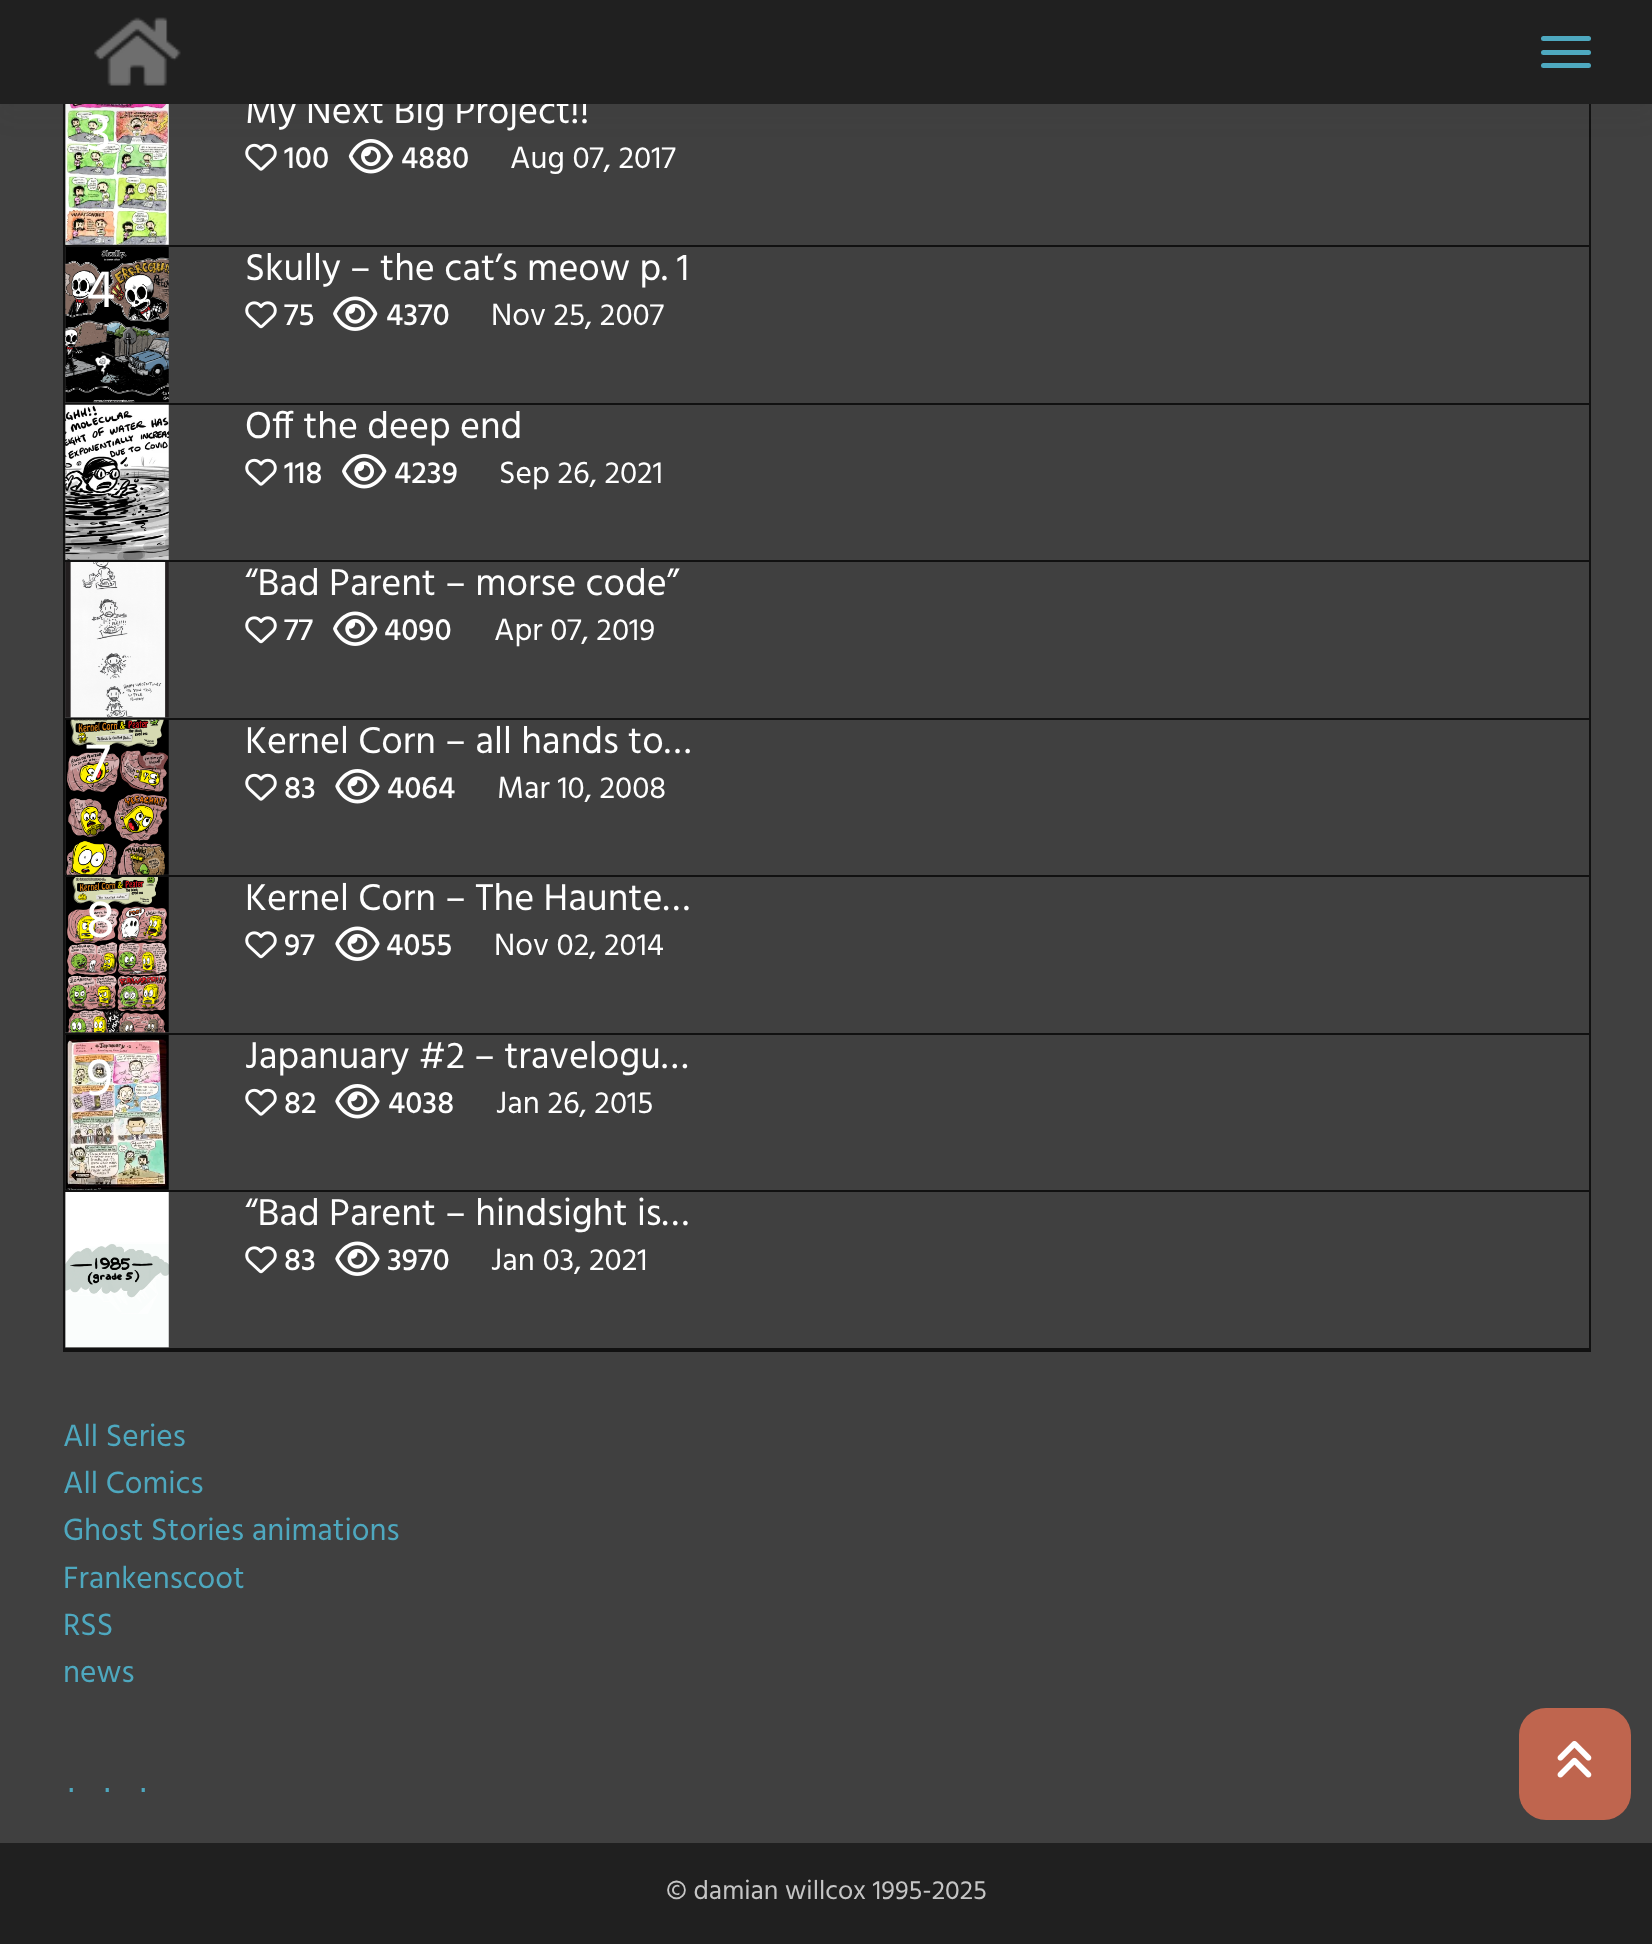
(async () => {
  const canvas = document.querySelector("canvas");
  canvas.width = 1652;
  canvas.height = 1944;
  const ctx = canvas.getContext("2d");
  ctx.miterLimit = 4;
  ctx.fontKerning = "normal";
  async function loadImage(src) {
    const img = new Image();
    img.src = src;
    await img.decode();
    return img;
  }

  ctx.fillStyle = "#404040";
  ctx.fillRect(0, 0, 1652, 1944);
  ctx.strokeStyle = "#111111";
  ctx.lineWidth = 2;
  ctx.strokeRect(64, -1, 1526, 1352);
  ctx.drawImage(await loadImage("img/2.png"), 65, 104, 104, 141);
  ctx.drawImage(await loadImage("img/3.png"), 245, 143, 32, 28);
  ctx.drawImage(await loadImage("img/4.png"), 348, 139, 46, 35);
  ctx.fillStyle = "rgba(50, 50, 50, 0.08)";
  ctx.filter = "blur(12.5px)";
  ctx.beginPath();
  ctx.rect(0, 11, 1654, 104);
  ctx.fill();
  ctx.filter = "none";
  ctx.fillStyle = "#111111";
  ctx.fillRect(65, 245, 1524, 2);
  ctx.fillRect(65, 403, 1524, 2);
  ctx.drawImage(await loadImage("img/5.png"), 65, 247, 104, 156);
  ctx.drawImage(await loadImage("img/6.png"), 245, 301, 32, 28);
  ctx.drawImage(await loadImage("img/7.png"), 333, 296, 45, 35);
  ctx.fillRect(65, 560, 1524, 2);
  ctx.drawImage(await loadImage("img/8.png"), 65, 404, 104, 156);
  ctx.drawImage(await loadImage("img/3.png"), 245, 458, 32, 28);
  ctx.drawImage(await loadImage("img/9.png"), 342, 454, 45, 35);
  ctx.fillRect(65, 718, 1524, 2);
  ctx.drawImage(await loadImage("img/10.png"), 65, 562, 104, 156);
  ctx.drawImage(await loadImage("img/6.png"), 245, 616, 32, 28);
  ctx.drawImage(await loadImage("img/7.png"), 333, 611, 45, 35);
  ctx.fillRect(65, 875, 1524, 2);
  ctx.drawImage(await loadImage("img/11.png"), 65, 719, 104, 156);
  ctx.drawImage(await loadImage("img/3.png"), 245, 773, 32, 28);
  ctx.drawImage(await loadImage("img/12.png"), 335, 769, 45, 35);
  ctx.fillRect(65, 1033, 1524, 2);
  ctx.drawImage(await loadImage("img/13.png"), 65, 877, 104, 156);
  ctx.drawImage(await loadImage("img/6.png"), 245, 931, 32, 28);
  ctx.drawImage(await loadImage("img/14.png"), 335, 926, 45, 35);
  ctx.fillRect(65, 1190, 1524, 2);
  ctx.drawImage(await loadImage("img/15.png"), 65, 1034, 104, 156);
  ctx.drawImage(await loadImage("img/3.png"), 245, 1088, 32, 28);
  ctx.drawImage(await loadImage("img/12.png"), 335, 1084, 45, 35);
  ctx.fillRect(65, 1348, 1524, 2);
  ctx.drawImage(await loadImage("img/16.png"), 65, 1192, 104, 156);
  ctx.drawImage(await loadImage("img/6.png"), 245, 1246, 32, 28);
  ctx.drawImage(await loadImage("img/14.png"), 335, 1241, 45, 35);
  ctx.fillStyle = "#bf654e";
  ctx.beginPath();
  ctx.roundRect(1519, 1708, 112, 112, 27);
  ctx.fill();
  ctx.drawImage(await loadImage("img/17.png"), 1557, 1741, 35, 37);
  ctx.fillStyle = "#202020";
  ctx.fillRect(0, 1843, 1652, 101);
  ctx.font = "54px Hind";
  ctx.fillStyle = "#ffffff";
  ctx.fillText("3", 86, 150);
  ctx.font = "38.25px Hind";
  ctx.fillText("My Next Big Project!!", 245, 123);
  ctx.fillStyle = "#202020";
  ctx.fillRect(0, 0, 1652, 104);
  ctx.fillStyle = "#4ea8bf";
  ctx.beginPath();
  ctx.roundRect(1541, 63, 50, 5, 2.5);
  ctx.fill();
  ctx.beginPath();
  ctx.roundRect(1541, 36, 50, 5, 2.5);
  ctx.fill();
  ctx.beginPath();
  ctx.roundRect(1541, 50, 50, 5, 2.5);
  ctx.fill();
  ctx.drawImage(await loadImage("img/1.png"), 94, 17, 87, 69);
  ctx.font = "500 31.5px Hind";
  ctx.fillStyle = "#ffffff";
  ctx.fillText("100", 284, 168);
  ctx.fillText("4880", 401, 168);
  ctx.font = "31.5px Hind";
  ctx.fillText("Aug 07, 2017", 510, 168);
  ctx.font = "54px Hind";
  ctx.fillText("4", 86, 307);
  ctx.font = "38.25px Hind";
  ctx.fillText("Skully – the cat’s meow p. 1", 245, 280);
  ctx.font = "500 31.5px Hind";
  ctx.fillText("75", 284, 325);
  ctx.fillText("4370", 386, 325);
  ctx.font = "31.5px Hind";
  ctx.fillText("Nov 25, 2007", 491, 325);
  ctx.font = "38.25px Hind";
  ctx.fillText("Off the deep end", 245, 438);
  ctx.font = "500 31.5px Hind";
  ctx.fillText("118", 284, 483);
  ctx.fillText("4239", 394, 483);
  ctx.font = "31.5px Hind";
  ctx.fillText("Sep 26, 2021", 499, 483);
  ctx.font = "38.25px Hind";
  ctx.fillText("“Bad Parent – morse code”", 245, 595);
  ctx.font = "500 31.5px Hind";
  ctx.fillText("77", 284, 640);
  ctx.fillText("4090", 384, 640);
  ctx.font = "31.5px Hind";
  ctx.fillText("Apr 07, 2019", 494, 640);
  ctx.font = "54px Hind";
  ctx.fillText("7", 86, 780);
  ctx.font = "38.25px Hind";
  ctx.fillText("Kernel Corn – all hands to…", 245, 753);
  ctx.font = "500 31.5px Hind";
  ctx.fillText("83", 284, 798);
  ctx.fillText("4064", 387, 798);
  ctx.font = "31.5px Hind";
  ctx.fillText("Mar 10, 2008", 497, 798);
  ctx.font = "54px Hind";
  ctx.fillText("8", 86, 937);
  ctx.font = "38.25px Hind";
  ctx.fillText("Kernel Corn – The Haunte…", 245, 910);
  ctx.font = "500 31.5px Hind";
  ctx.fillText("97", 284, 955);
  ctx.fillText("4055", 386, 955);
  ctx.font = "31.5px Hind";
  ctx.fillText("Nov 02, 2014", 494, 955);
  ctx.font = "54px Hind";
  ctx.fillText("9", 86, 1095);
  ctx.font = "38.25px Hind";
  ctx.fillText("Japanuary #2 – travelogu…", 245, 1068);
  ctx.font = "500 31.5px Hind";
  ctx.fillText("82", 284, 1113);
  ctx.fillText("4038", 388, 1113);
  ctx.font = "31.5px Hind";
  ctx.fillText("Jan 26, 2015", 496, 1113);
  ctx.font = "38.25px Hind";
  ctx.fillText("“Bad Parent – hindsight is…", 245, 1225);
  ctx.font = "500 31.5px Hind";
  ctx.fillText("83", 284, 1270);
  ctx.fillText("3970", 387, 1270);
  ctx.font = "31.5px Hind";
  ctx.fillText("Jan 03, 2021", 491, 1270);
  ctx.fillStyle = "#4ea8bf";
  for (const [text, x, y] of [
    ["All Series", 63, 1446],
    ["All Comics", 63, 1493],
    ["Ghost Stories animations", 63, 1540],
    ["Frankenscoot", 63, 1588],
    ["RSS", 63, 1635],
    ["news", 63, 1682],
  ]) {
    ctx.fillText(text, x, y);
  }
  ctx.letterSpacing = "1.5px";
  ctx.font = "27.5px Liberation Mono";
  ctx.fillText(". . .", 63, 1792);
  ctx.letterSpacing = "0px";
  ctx.font = "27px Hind";
  ctx.fillStyle = "#c5c5c5";
  ctx.fillText("© damian willcox 1995-2025", 666, 1899);
})();
